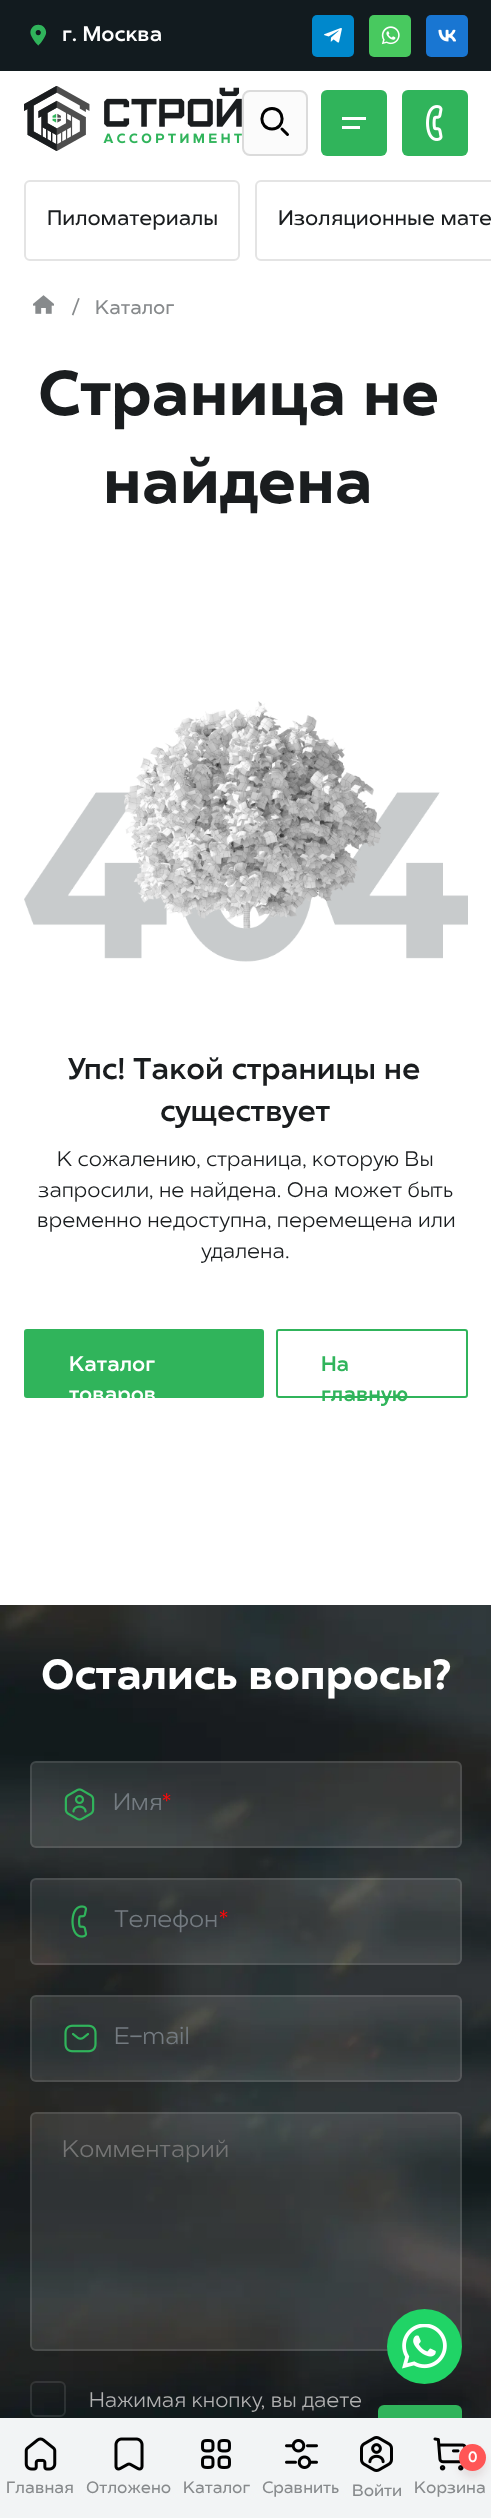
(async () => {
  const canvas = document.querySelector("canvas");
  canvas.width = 491;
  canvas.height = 2518;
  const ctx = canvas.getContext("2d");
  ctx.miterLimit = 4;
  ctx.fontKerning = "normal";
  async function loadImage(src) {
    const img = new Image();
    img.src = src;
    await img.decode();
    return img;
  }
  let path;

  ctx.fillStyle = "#ffffff";
  ctx.fillRect(0, 0, 491, 2518);
  ctx.fillStyle = "#121b1f";
  ctx.fillRect(0, 0, 491, 71);
  ctx.drawImage(await loadImage("img/1.png"), 30, 24, 17, 22);
  ctx.fillStyle = "#0088cc";
  ctx.beginPath();
  ctx.roundRect(312, 15, 42, 42, 5);
  ctx.fill();
  ctx.drawImage(await loadImage("img/2.png"), 324, 28, 18, 15);
  ctx.fillStyle = "#48c95f";
  ctx.beginPath();
  ctx.roundRect(369, 15, 42, 42, 5);
  ctx.fill();
  ctx.drawImage(await loadImage("img/3.png"), 381, 26, 19, 19);
  ctx.fillStyle = "#1976d2";
  ctx.beginPath();
  ctx.roundRect(426, 15, 42, 42, 5);
  ctx.fill();
  ctx.drawImage(await loadImage("img/4.png"), 438, 29, 18, 13);
  ctx.drawImage(await loadImage("img/5.png"), 24, 86, 218, 65);
  ctx.fillStyle = "#fbfbfb";
  ctx.beginPath();
  ctx.roundRect(243, 91, 64, 64, 7);
  ctx.fill();
  ctx.strokeStyle = "#dbdbdb";
  ctx.lineWidth = 2;
  ctx.stroke();
  path = new Path2D("M272 129C285.5 129 285.5 108.5 272 108.5C258.5 108.5 258.5 129 272 129ZM287.5 134.5L282 129");
  ctx.strokeStyle = "#000000";
  ctx.lineWidth = 3;
  ctx.lineCap = "round";
  ctx.lineJoin = "round";
  ctx.stroke(path);
  ctx.fillStyle = "#30b45b";
  ctx.beginPath();
  ctx.roundRect(321, 90, 66, 66, 6);
  ctx.fill();
  ctx.drawImage(await loadImage("img/6.png"), 342, 117, 24, 12);
  ctx.beginPath();
  ctx.roundRect(402, 90, 66, 66, 6);
  ctx.fill();
  ctx.drawImage(await loadImage("img/7.png"), 426, 105, 17, 36);
  ctx.beginPath();
  ctx.roundRect(25, 181, 214, 79, 5);
  ctx.strokeStyle = "#e4e4e4";
  ctx.lineWidth = 2;
  ctx.lineJoin = "miter";
  ctx.stroke();
  ctx.beginPath();
  ctx.roundRect(256, 181, 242, 79, 5);
  ctx.stroke();
  ctx.drawImage(await loadImage("img/8.png"), 33, 295, 21, 19);
  ctx.drawImage(await loadImage("img/9.png"), 24, 701, 444, 261);
  ctx.beginPath();
  ctx.roundRect(25, 1330, 238, 67, 2);
  ctx.fill();
  ctx.strokeStyle = "#30b45b";
  ctx.stroke();
  ctx.beginPath();
  ctx.roundRect(277, 1330, 190, 67, 2);
  ctx.stroke();
  ctx.drawImage(await loadImage("img/10.png"), 0, 1605, 491, 813);
  ctx.fillStyle = "rgba(255, 255, 255, 0.1)";
  ctx.beginPath();
  ctx.roundRect(30, 1761, 432, 87, 6);
  ctx.fill();
  ctx.beginPath();
  ctx.roundRect(31, 1762, 430, 85, 5);
  ctx.strokeStyle = "rgba(255, 255, 255, 0.1)";
  ctx.stroke();
  ctx.drawImage(await loadImage("img/11.png"), 64, 1788, 31, 33);
  ctx.beginPath();
  ctx.roundRect(30, 1878, 432, 87, 6);
  ctx.fill();
  ctx.beginPath();
  ctx.roundRect(31, 1879, 430, 85, 5);
  ctx.stroke();
  ctx.drawImage(await loadImage("img/12.png"), 71, 1905, 17, 33);
  ctx.beginPath();
  ctx.roundRect(30, 1995, 432, 87, 6);
  ctx.fill();
  ctx.beginPath();
  ctx.roundRect(31, 1996, 430, 85, 5);
  ctx.stroke();
  ctx.drawImage(await loadImage("img/13.png"), 64, 2024, 33, 29);
  ctx.beginPath();
  ctx.roundRect(30, 2112, 432, 239, 6);
  ctx.fill();
  ctx.beginPath();
  ctx.roundRect(31, 2113, 430, 237, 5);
  ctx.stroke();
  ctx.beginPath();
  ctx.roundRect(31, 2382, 34, 34, 5);
  ctx.stroke();
  ctx.fillStyle = "rgba(43, 149, 78, 0.5)";
  ctx.filter = "blur(15px)";
  ctx.beginPath();
  ctx.rect(386, 2427, 69, 69);
  ctx.fill();
  ctx.filter = "none";
  ctx.fillStyle = "#20d466";
  ctx.beginPath();
  ctx.arc(424.5, 2346.5, 37.5, 0, Math.PI * 2);
  ctx.fill();
  ctx.drawImage(await loadImage("img/14.png"), 402, 2324, 45, 45);
  ctx.fillStyle = "#30b45b";
  ctx.beginPath();
  ctx.roundRect(378, 2405, 84, 84, 6);
  ctx.fill();
  ctx.fillStyle = "#f2f4f5";
  ctx.fillRect(0, 2418, 491, 100);
  ctx.drawImage(await loadImage("img/15.png"), 24, 2437, 33, 34);
  ctx.drawImage(await loadImage("img/16.png"), 114, 2437, 30, 34);
  ctx.drawImage(await loadImage("img/17.png"), 201, 2439, 30, 30);
  ctx.drawImage(await loadImage("img/18.png"), 285, 2439, 33, 30);
  ctx.drawImage(await loadImage("img/19.png"), 360, 2436, 33, 36);
  ctx.drawImage(await loadImage("img/20.png"), 433, 2437, 34, 34);
  ctx.fillStyle = "rgba(99, 23, 23, 0.1)";
  ctx.filter = "blur(4px)";
  ctx.beginPath();
  ctx.roundRect(459, 2451, 27, 27, 13.5);
  ctx.fill();
  ctx.filter = "none";
  ctx.fillStyle = "#ff5656";
  ctx.beginPath();
  ctx.arc(472.5, 2457.5, 13.5, 0, Math.PI * 2);
  ctx.fill();
  ctx.font = "bold 21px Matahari";
  ctx.fillStyle = "#ffffff";
  ctx.fillText("г. Москва", 62, 41);
  ctx.font = "600 21px Matahari";
  ctx.fillStyle = "#1a1d1f";
  ctx.fillText("Пиломатериалы", 47, 225);
  ctx.fillText("Изоляционные мате", 278, 225);
  ctx.font = "600 19.5px Matahari";
  ctx.fillStyle = "#878a8c";
  ctx.fillText("/", 72, 313);
  ctx.fillText("Каталог", 95, 314);
  ctx.font = "800 63px Matahari";
  ctx.fillStyle = "#1a1d1f";
  ctx.fillText("Страница не", 38, 415);
  ctx.fillText("найдена", 103, 503);
  ctx.font = "bold 30px Matahari";
  ctx.fillText("Упс! Такой страницы не", 68, 1079);
  ctx.fillText("существует", 160, 1121);
  ctx.font = "21px Matahari";
  for (const [text, x, y] of [
    ["К сожалению, страница, которую Вы", 57, 1166],
    ["запросили, не найдена. Она может быть", 38, 1197],
    ["временно недоступна, перемещена или", 37, 1227],
    ["удалена.", 201, 1258],
  ]) {
    ctx.fillText(text, x, y);
  }
  ctx.font = "bold 21px Matahari";
  ctx.fillStyle = "#ffffff";
  ctx.fillText("Каталог", 69, 1371);
  ctx.fillText("товаров", 69, 1401);
  ctx.fillStyle = "#30b45b";
  ctx.fillText("На", 321, 1371);
  ctx.fillText("главную", 321, 1401);
  ctx.font = "800 42px Matahari";
  ctx.fillStyle = "#ffffff";
  ctx.fillText("Остались вопросы?", 41, 1689);
  ctx.font = "24px Matahari";
  ctx.fillStyle = "#747b81";
  ctx.fillText("Имя", 113, 1810);
  ctx.fillStyle = "#ff0808";
  ctx.fillText("*", 162, 1810);
  ctx.fillStyle = "#747b81";
  ctx.fillText("Телефон", 114, 1927);
  ctx.fillStyle = "#ff0808";
  ctx.fillText("*", 219, 1927);
  ctx.fillStyle = "#747b81";
  ctx.fillText("E-mail", 114, 2044);
  ctx.fillStyle = "#757575";
  ctx.fillText("Комментарий", 62, 2157);
  ctx.font = "21px Matahari";
  ctx.fillStyle = "#b1b1b1";
  ctx.fillText("Нажимая кнопку, вы даете", 89, 2407);
  ctx.font = "600 16.5px Matahari";
  ctx.fillStyle = "#878a8c";
  for (const [text, x, y] of [
    ["Главная", 6, 2493],
    ["Отложено", 86, 2493],
    ["Каталог", 183, 2493],
    ["Сравнить", 262, 2493],
    ["Войти", 352, 2496],
  ]) {
    ctx.fillText(text, x, y);
  }
  ctx.font = "bold 15px Matahari";
  ctx.fillStyle = "#ffffff";
  ctx.fillText("0", 468, 2462);
  ctx.font = "600 16.5px Matahari";
  ctx.fillStyle = "#878a8c";
  ctx.fillText("Корзина", 414, 2493);
})();
